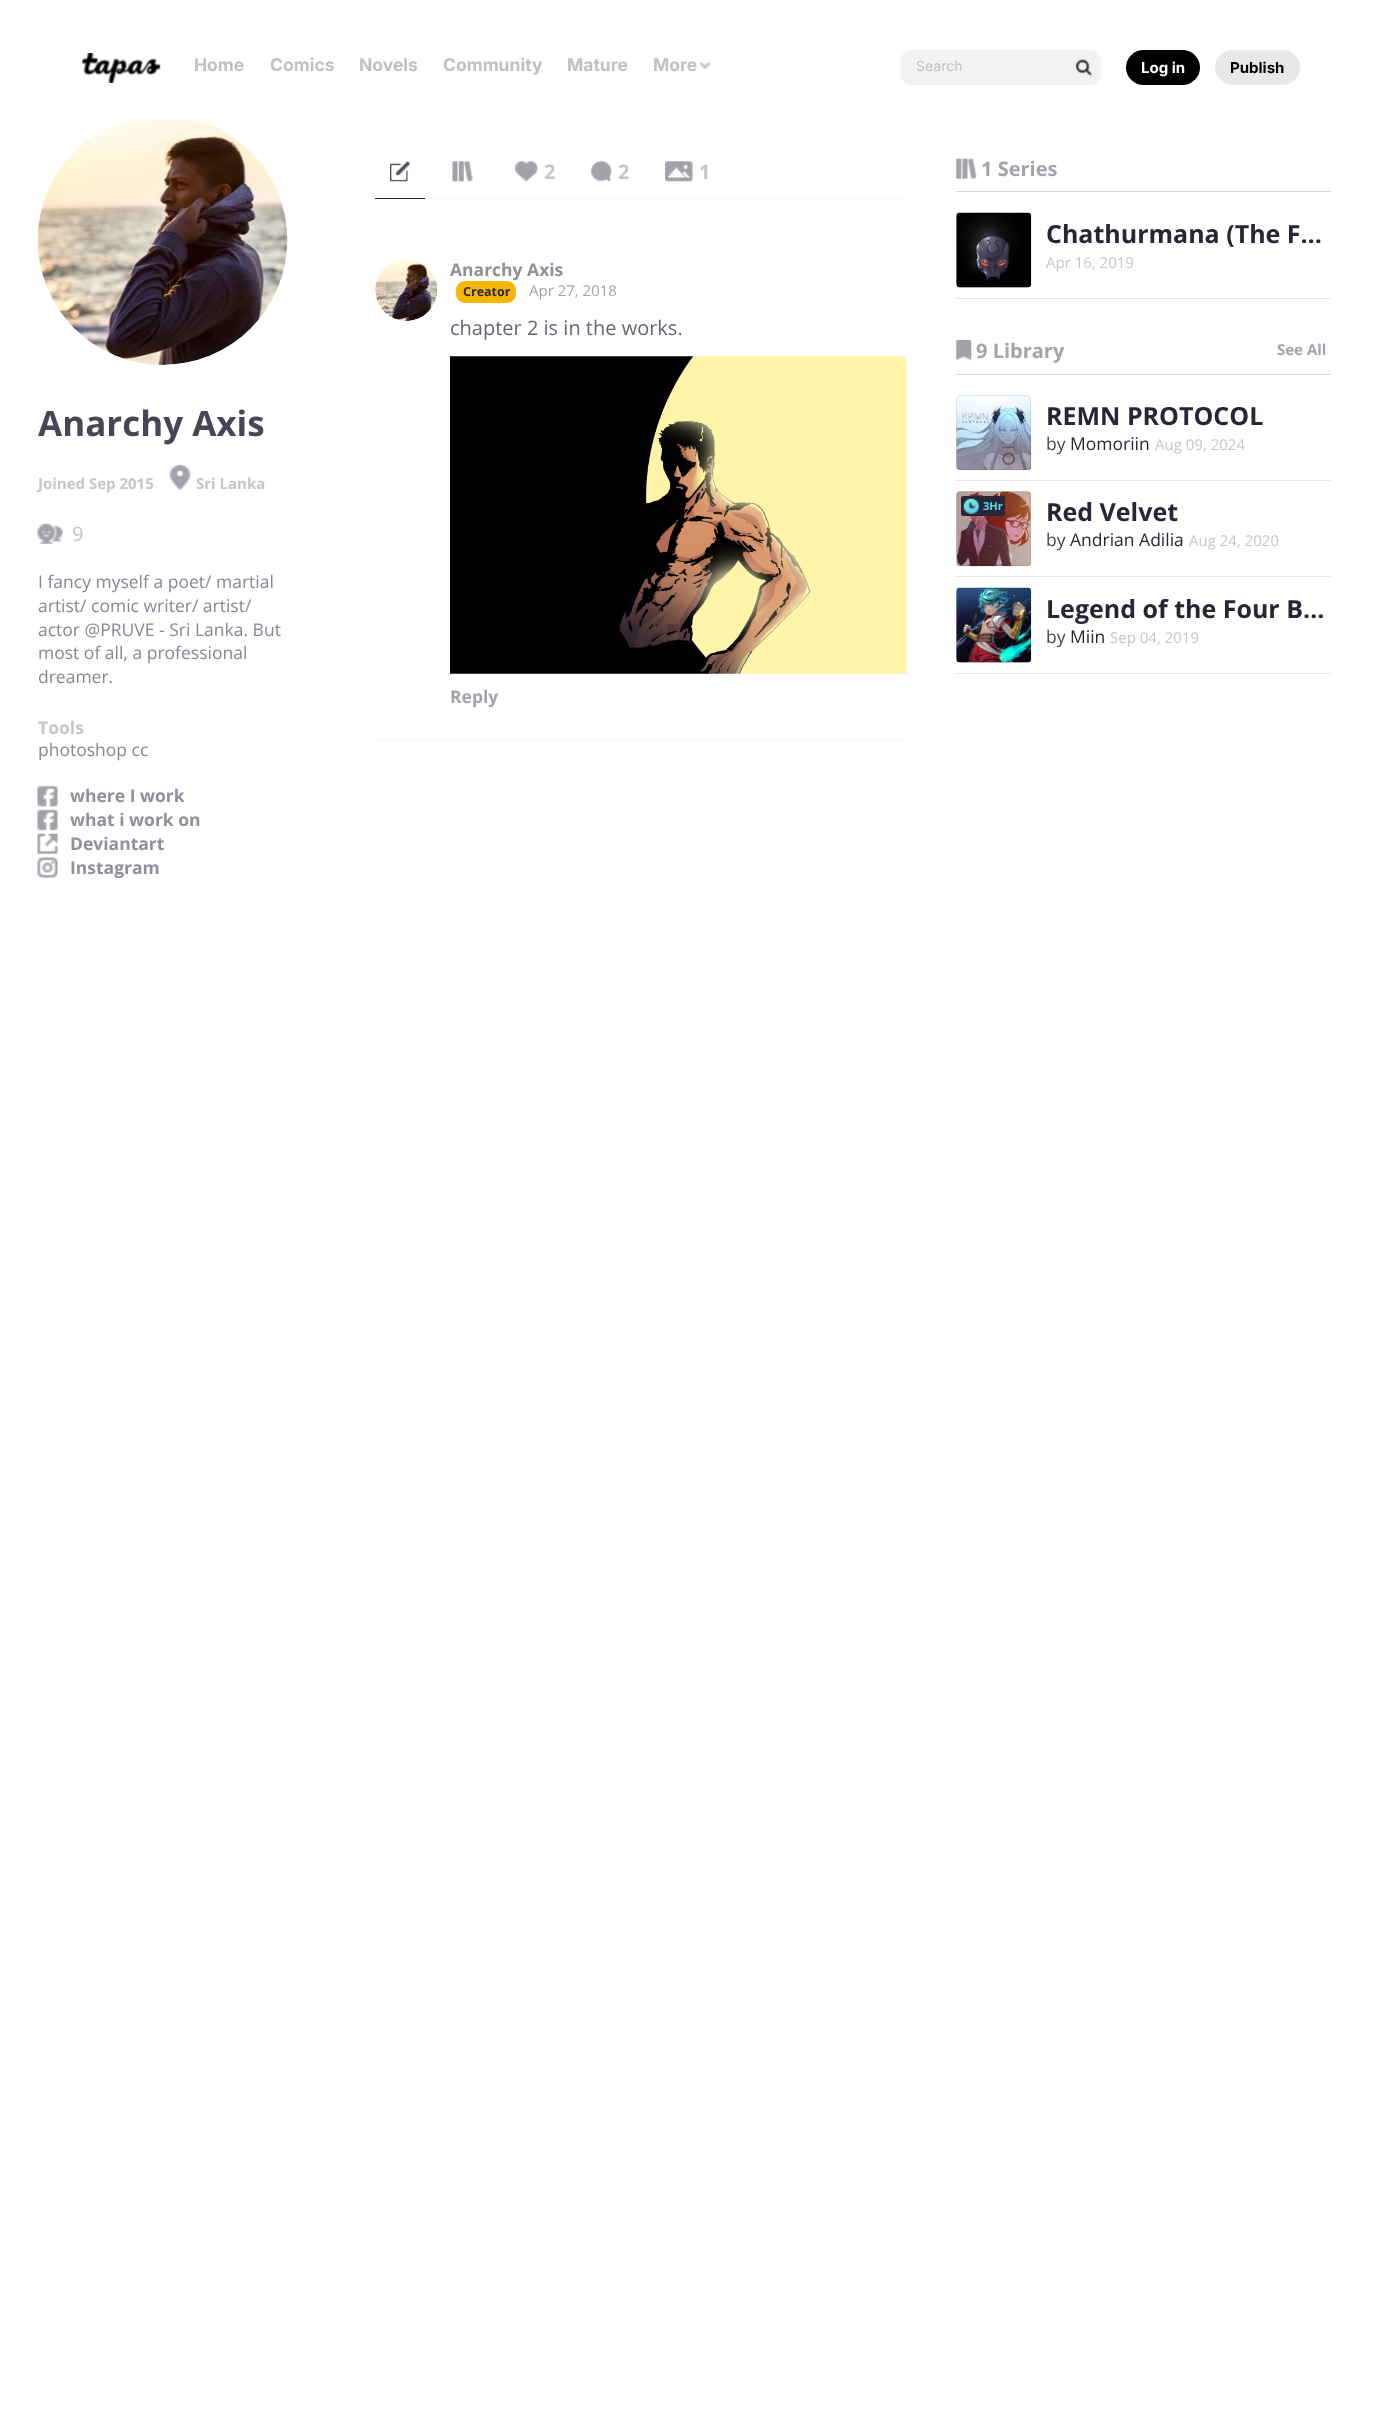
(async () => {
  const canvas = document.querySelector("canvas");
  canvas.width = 1381;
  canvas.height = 2415;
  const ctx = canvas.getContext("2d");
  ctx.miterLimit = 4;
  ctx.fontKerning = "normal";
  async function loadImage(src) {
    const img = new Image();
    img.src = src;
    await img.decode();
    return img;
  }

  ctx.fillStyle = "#ffffff";
  ctx.fillRect(0, 0, 1381, 2415);
  ctx.drawImage(await loadImage("img/1.png"), 82, 53, 79, 30);
  ctx.drawImage(await loadImage("img/2.png"), 699, 62, 12, 8);
  ctx.fillStyle = "#f2f2f2";
  ctx.beginPath();
  ctx.roundRect(901, 50, 200, 35, 10);
  ctx.fill();
  ctx.drawImage(await loadImage("img/3.png"), 1075, 59, 17, 17);
  ctx.fillStyle = "#000000";
  ctx.beginPath();
  ctx.roundRect(1126, 50, 74, 35, 17.5);
  ctx.fill();
  ctx.fillStyle = "#e8e8e8";
  ctx.beginPath();
  ctx.roundRect(1215, 50, 85, 35, 17.5);
  ctx.fill();
  ctx.drawImage(await loadImage("img/4.png"), 37, 120, 251, 245);
  ctx.drawImage(await loadImage("img/5.png"), 169, 464, 22, 27);
  ctx.drawImage(await loadImage("img/6.png"), 37, 523, 26, 21);
  ctx.drawImage(await loadImage("img/7.png"), 37, 785, 21, 22);
  ctx.drawImage(await loadImage("img/8.png"), 37, 809, 21, 22);
  ctx.drawImage(await loadImage("img/9.png"), 37, 833, 21, 21);
  ctx.drawImage(await loadImage("img/10.png"), 37, 856, 21, 22);
  ctx.fillStyle = "#f6f6f6";
  ctx.fillRect(425, 198, 481, 1);
  ctx.fillStyle = "#262636";
  ctx.fillRect(375, 198, 50, 1);
  ctx.drawImage(await loadImage("img/11.png"), 390, 161, 20, 21);
  ctx.drawImage(await loadImage("img/12.png"), 452, 161, 21, 21);
  ctx.drawImage(await loadImage("img/13.png"), 515, 161, 23, 21);
  ctx.drawImage(await loadImage("img/14.png"), 591, 161, 21, 21);
  ctx.drawImage(await loadImage("img/15.png"), 665, 161, 28, 21);
  ctx.fillStyle = "#d6d6d6";
  ctx.fillRect(956, 191, 375, 1);
  ctx.drawImage(await loadImage("img/16.png"), 956, 158, 21, 21);
  ctx.fillStyle = "#e6e6e6";
  ctx.fillRect(956, 298, 375, 1);
  ctx.drawImage(await loadImage("img/17.png"), 956, 212, 76, 76);
  ctx.beginPath();
  ctx.roundRect(956.5, 213.5, 74, 74, 4.5);
  ctx.strokeStyle = "rgba(6, 6, 22, 0.1)";
  ctx.stroke();
  ctx.fillStyle = "#d6d6d6";
  ctx.fillRect(956, 374, 375, 1);
  ctx.drawImage(await loadImage("img/18.png"), 956, 340, 16, 20);
  ctx.fillStyle = "#e6e6e6";
  ctx.fillRect(956, 480, 375, 1);
  ctx.drawImage(await loadImage("img/19.png"), 956, 395, 76, 75);
  ctx.beginPath();
  ctx.roundRect(956.5, 395.5, 74, 74, 4.5);
  ctx.stroke();
  ctx.fillRect(956, 576, 375, 1);
  ctx.drawImage(await loadImage("img/20.png"), 956, 491, 76, 76);
  ctx.fillStyle = "#262636";
  ctx.beginPath();
  ctx.roundRect(961, 496, 44, 20, 2.5);
  ctx.fill();
  ctx.drawImage(await loadImage("img/21.png"), 963, 498, 16, 16);
  ctx.beginPath();
  ctx.roundRect(956.5, 491.5, 74, 74, 4.5);
  ctx.stroke();
  ctx.fillStyle = "#e6e6e6";
  ctx.fillRect(956, 673, 375, 1);
  ctx.drawImage(await loadImage("img/22.png"), 956, 587, 76, 76);
  ctx.beginPath();
  ctx.roundRect(956.5, 588.5, 74, 74, 4.5);
  ctx.stroke();
  ctx.fillStyle = "#f6f6f6";
  ctx.fillRect(375, 739, 531, 1);
  ctx.drawImage(await loadImage("img/23.png"), 375, 259, 63, 62);
  ctx.fillStyle = "#f6b606";
  ctx.beginPath();
  ctx.roundRect(456, 281, 60, 22, 9);
  ctx.fill();
  ctx.drawImage(await loadImage("img/24.png"), 450, 356, 457, 318);
  ctx.font = "bold 17.5px Inter";
  ctx.fillStyle = "#c0c0c0";
  for (const [text, x, y] of [
    ["Home", 194, 71],
    ["Comics", 270, 71],
    ["Novels", 359, 71],
    ["Community", 443, 71],
    ["Mature", 567, 71],
    ["More", 653, 71],
  ]) {
    ctx.fillText(text, x, y);
  }
  ctx.font = "14px Inter";
  ctx.fillText("Search", 916, 71);
  ctx.font = "bold 15px Inter";
  ctx.fillStyle = "#ffffff";
  ctx.fillText("Log in", 1141, 73);
  ctx.fillStyle = "#000000";
  ctx.fillText("Publish", 1230, 73);
  ctx.font = "bold 35px Open Sans";
  ctx.fillStyle = "#464656";
  ctx.fillText("Anarchy Axis", 38, 436);
  ctx.font = "bold 15px Open Sans";
  ctx.fillStyle = "#c6c6c6";
  ctx.fillText("Joined Sep 2015", 38, 489);
  ctx.fillText("Sri Lanka", 196, 489);
  ctx.font = "20px Open Sans";
  ctx.fillText("9", 72, 541);
  ctx.font = "17.5px Open Sans";
  ctx.fillStyle = "#868696";
  for (const [text, x, y] of [
    ["I fancy myself a poet/ martial", 38, 588],
    ["artist/ comic writer/ artist/", 38, 612],
    ["actor @PRUVE - Sri Lanka. But", 38, 636],
    ["most of all, a professional", 38, 659],
    ["dreamer.", 38, 683],
  ]) {
    ctx.fillText(text, x, y);
  }
  ctx.font = "bold 17.5px Open Sans";
  ctx.fillStyle = "#c6c6c6";
  ctx.fillText("Tools", 38, 734);
  ctx.font = "17.5px Open Sans";
  ctx.fillStyle = "#868696";
  ctx.fillText("photoshop cc", 38, 756);
  ctx.font = "bold 17.5px Open Sans";
  ctx.fillStyle = "#90909a";
  for (const [text, x, y] of [
    ["where I work", 70, 802],
    ["what i work on", 70, 826],
    ["Deviantart", 70, 850],
  ]) {
    ctx.fillText(text, x, y);
  }
  ctx.save();
  ctx.beginPath();
  ctx.rect(70, 858, 255, 20);
  ctx.clip();
  ctx.fillText("Instagram", 70, 874);
  ctx.restore();
  ctx.font = "bold 20px Open Sans";
  ctx.fillStyle = "#c6c6c6";
  for (const [text, x, y] of [
    ["2", 544, 179],
    ["2", 618, 179],
    ["1", 699, 179],
  ]) {
    ctx.fillText(text, x, y);
  }
  ctx.fillStyle = "#a3a3ab";
  ctx.fillText("1 Series", 981, 176);
  ctx.font = "bold 25px Open Sans";
  ctx.fillStyle = "#262636";
  ctx.fillText("Chathurmana (The F…", 1046, 243);
  ctx.font = "15px Open Sans";
  ctx.fillStyle = "#c6c6c6";
  ctx.fillText("Apr 16, 2019", 1046, 268);
  ctx.font = "bold 20px Open Sans";
  ctx.fillStyle = "#a3a3ab";
  ctx.fillText("9 Library", 976, 358);
  ctx.font = "bold 15px Open Sans";
  ctx.fillText("See All", 1277, 355);
  ctx.font = "bold 25px Open Sans";
  ctx.fillStyle = "#262636";
  ctx.fillText("REMN PROTOCOL", 1046, 425);
  ctx.font = "17.5px Open Sans";
  ctx.fillStyle = "#464656";
  ctx.fillText("by", 1046, 450);
  ctx.fillStyle = "#262636";
  ctx.fillText("Momoriin", 1070, 450);
  ctx.font = "15px Open Sans";
  ctx.fillStyle = "#c6c6c6";
  ctx.fillText("Aug 09, 2024", 1155, 450);
  ctx.font = "bold 11px Open Sans";
  ctx.fillStyle = "#53dfff";
  ctx.fillText("3Hr", 983, 510);
  ctx.font = "bold 25px Open Sans";
  ctx.fillStyle = "#262636";
  ctx.fillText("Red Velvet", 1046, 521);
  ctx.font = "17.5px Open Sans";
  ctx.fillStyle = "#464656";
  ctx.fillText("by", 1046, 546);
  ctx.fillStyle = "#262636";
  ctx.fillText("Andrian Adilia", 1070, 546);
  ctx.font = "15px Open Sans";
  ctx.fillStyle = "#c6c6c6";
  ctx.fillText("Aug 24, 2020", 1189, 546);
  ctx.font = "bold 25px Open Sans";
  ctx.fillStyle = "#262636";
  ctx.fillText("Legend of the Four B…", 1046, 618);
  ctx.font = "17.5px Open Sans";
  ctx.fillStyle = "#464656";
  ctx.fillText("by", 1046, 643);
  ctx.fillStyle = "#262636";
  ctx.fillText("Miin", 1070, 643);
  ctx.font = "15px Open Sans";
  ctx.fillStyle = "#c6c6c6";
  ctx.fillText("Sep 04, 2019", 1110, 643);
  ctx.font = "bold 17.5px Open Sans";
  ctx.fillStyle = "#90909a";
  ctx.fillText("Anarchy Axis", 450, 276);
  ctx.font = "bold 12.5px Open Sans";
  ctx.fillStyle = "#262636";
  ctx.fillText("Creator", 463, 296);
  ctx.font = "15px Open Sans";
  ctx.fillStyle = "#a3a3ab";
  ctx.fillText("Apr 27, 2018", 529, 296);
  ctx.font = "20px Open Sans";
  ctx.fillStyle = "#666676";
  ctx.fillText("chapter 2 is in the works.", 450, 335);
  ctx.font = "bold 17.5px Open Sans";
  ctx.fillStyle = "#a3a3ab";
  ctx.fillText("Reply", 450, 703);
})();
